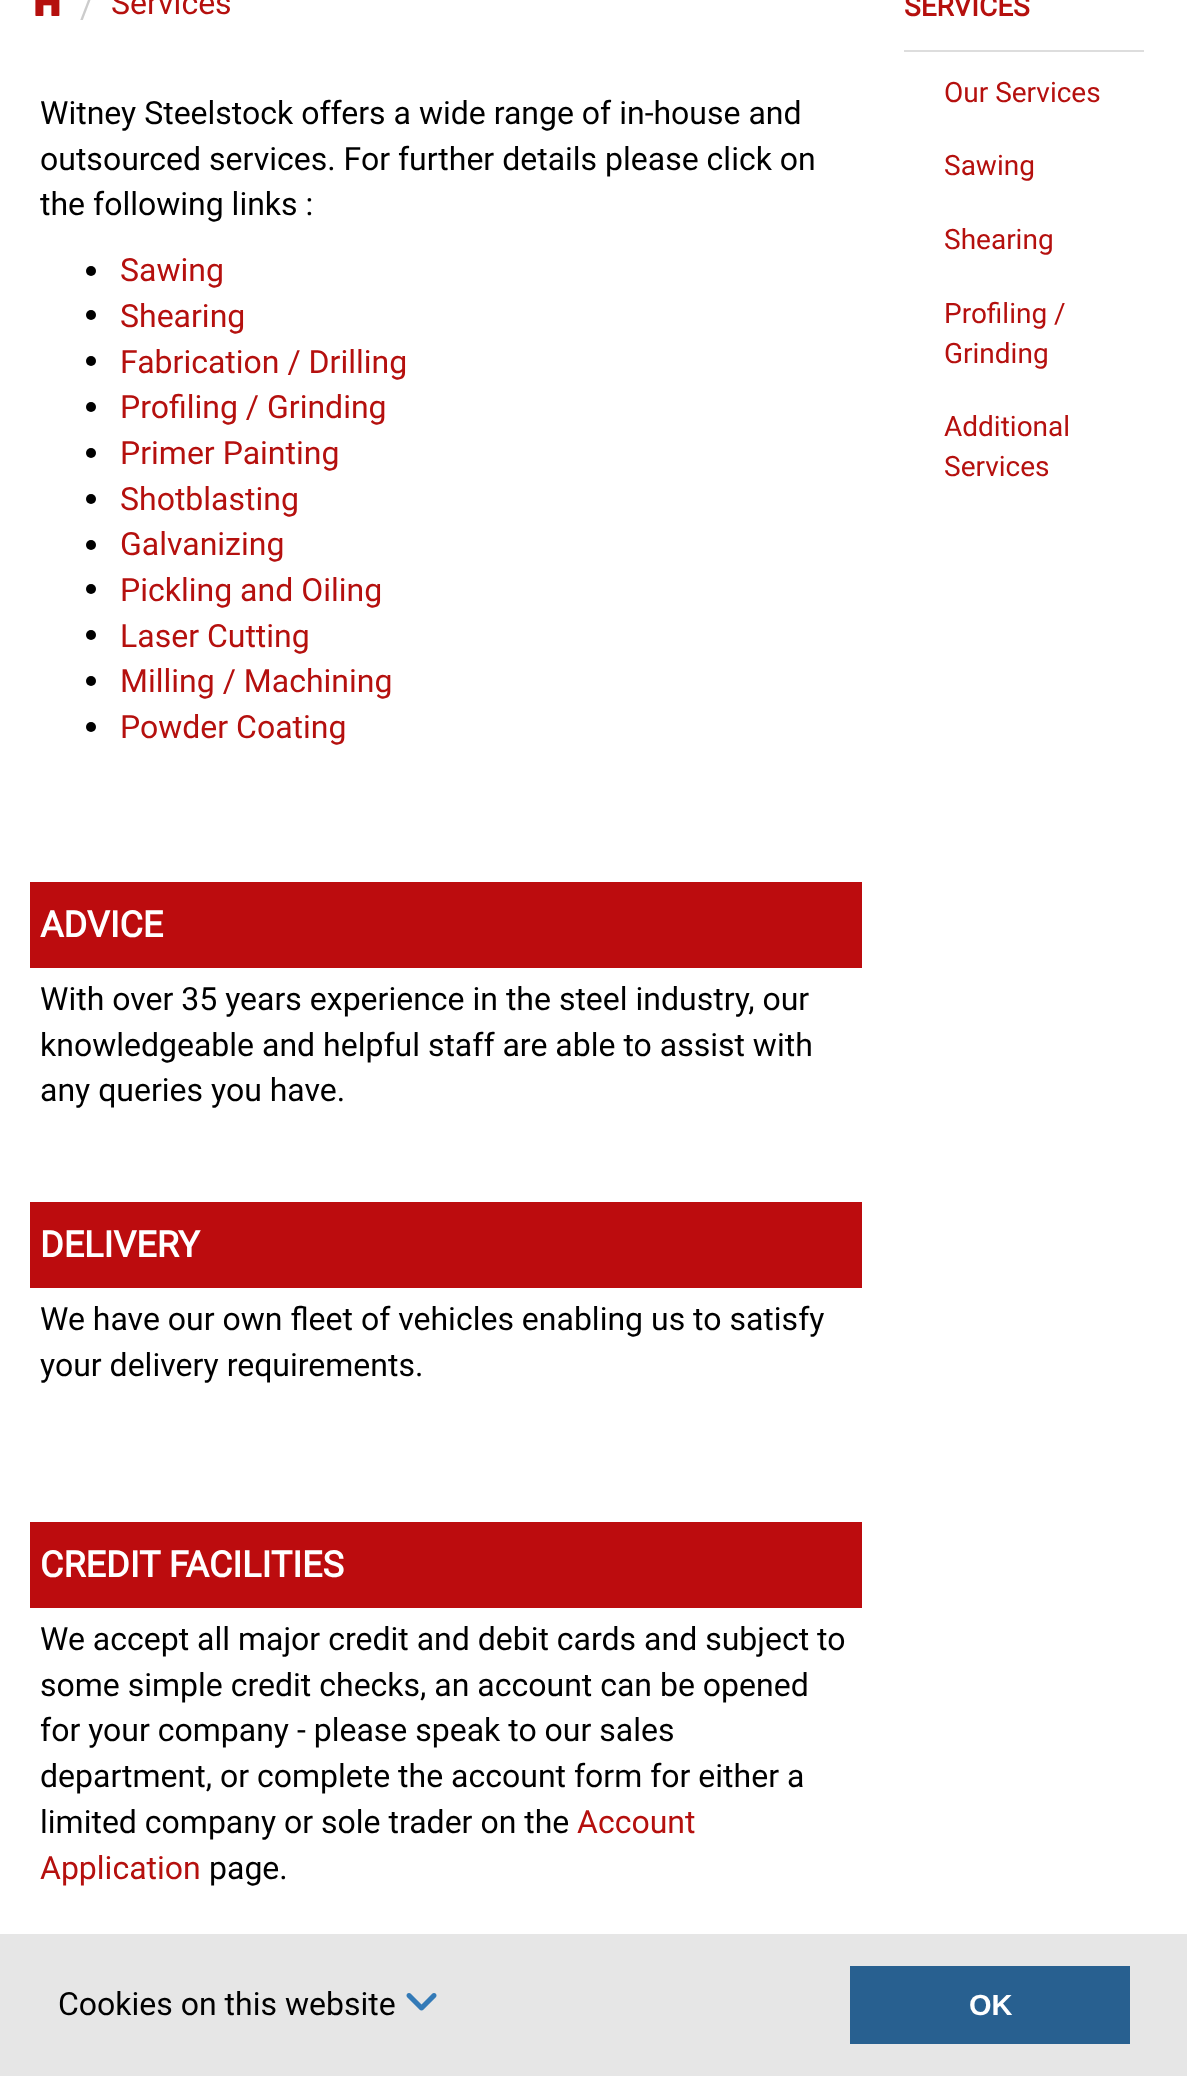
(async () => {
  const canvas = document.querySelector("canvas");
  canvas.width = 1187;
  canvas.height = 2076;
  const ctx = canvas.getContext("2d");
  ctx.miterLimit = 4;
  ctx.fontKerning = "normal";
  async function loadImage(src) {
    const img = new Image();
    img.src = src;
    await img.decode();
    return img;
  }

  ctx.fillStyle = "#ffffff";
  ctx.fillRect(0, 0, 1187, 2076);
  ctx.drawImage(await loadImage("img/1.png"), 35, 0, 25, 16);
  ctx.fillStyle = "#000000";
  ctx.beginPath();
  ctx.arc(91, 271, 5, 0, Math.PI * 2);
  ctx.fill();
  ctx.beginPath();
  ctx.arc(91, 315, 5, 0, Math.PI * 2);
  ctx.fill();
  ctx.beginPath();
  ctx.arc(91, 361, 5, 0, Math.PI * 2);
  ctx.fill();
  ctx.beginPath();
  ctx.arc(91, 407, 5, 0, Math.PI * 2);
  ctx.fill();
  ctx.beginPath();
  ctx.arc(91, 453, 5, 0, Math.PI * 2);
  ctx.fill();
  ctx.beginPath();
  ctx.arc(91, 499, 5, 0, Math.PI * 2);
  ctx.fill();
  ctx.beginPath();
  ctx.arc(91, 545, 5, 0, Math.PI * 2);
  ctx.fill();
  ctx.beginPath();
  ctx.arc(91, 589, 5, 0, Math.PI * 2);
  ctx.fill();
  ctx.beginPath();
  ctx.arc(91, 635, 5, 0, Math.PI * 2);
  ctx.fill();
  ctx.beginPath();
  ctx.arc(91, 681, 5, 0, Math.PI * 2);
  ctx.fill();
  ctx.beginPath();
  ctx.arc(91, 727, 5, 0, Math.PI * 2);
  ctx.fill();
  for (const [x, y, w, h, color] of [
    [30, 882, 832, 86, "#bc0c0e"],
    [30, 1202, 832, 86, "#bc0c0e"],
    [30, 1522, 832, 86, "#bc0c0e"],
    [904, 50, 240, 2, "#dddddd"],
    [0, 1934, 1187, 142, "#e6e6e6"],
  ]) {
    ctx.fillStyle = color;
    ctx.fillRect(x, y, w, h);
  }
  ctx.drawImage(await loadImage("img/2.png"), 406, 1993, 31, 18);
  ctx.fillStyle = "#286090";
  ctx.fillRect(850, 1966, 280, 78);
  ctx.font = "32px Roboto";
  ctx.fillStyle = "#cccccc";
  ctx.fillText("/", 80, 18);
  ctx.fillStyle = "#b5100e";
  ctx.fillText("Services", 111, 14);
  ctx.fillStyle = "#000000";
  for (const [text, x, y] of [
    ["Witney Steelstock offers a wide range of in-house and", 40, 124],
    ["outsourced services. For further details please click on", 40, 170],
    ["the following links :", 40, 215],
  ]) {
    ctx.fillText(text, x, y);
  }
  ctx.fillStyle = "#b5100e";
  for (const [text, x, y] of [
    ["Sawing", 120, 281],
    ["Shearing", 120, 327],
    ["Fabrication / Drilling", 120, 373],
    ["Profiling / Grinding", 120, 418],
    ["Primer Painting", 120, 464],
    ["Shotblasting", 120, 510],
    ["Galvanizing", 120, 555],
    ["Pickling and Oiling", 120, 601],
    ["Laser Cutting", 120, 647],
    ["Milling / Machining", 120, 692],
    ["Powder Coating", 120, 738],
  ]) {
    ctx.fillText(text, x, y);
  }
  ctx.font = "bold 36px Roboto";
  ctx.fillStyle = "#ffffff";
  ctx.fillText("ADVICE", 40, 937);
  ctx.font = "32px Roboto";
  ctx.fillStyle = "#000000";
  for (const [text, x, y] of [
    ["With over 35 years experience in the steel industry, our", 40, 1010],
    ["knowledgeable and helpful staff are able to assist with", 40, 1056],
    ["any queries you have.", 40, 1101],
  ]) {
    ctx.fillText(text, x, y);
  }
  ctx.font = "bold 36px Roboto";
  ctx.fillStyle = "#ffffff";
  ctx.fillText("DELIVERY", 40, 1257);
  ctx.font = "32px Roboto";
  ctx.fillStyle = "#000000";
  ctx.fillText("We have our own fleet of vehicles enabling us to satisfy", 40, 1330);
  ctx.fillText("your delivery requirements.", 40, 1376);
  ctx.font = "bold 36px Roboto";
  ctx.fillStyle = "#ffffff";
  ctx.fillText("CREDIT FACILITIES", 40, 1577);
  ctx.font = "32px Roboto";
  ctx.fillStyle = "#000000";
  for (const [text, x, y] of [
    ["We accept all major credit and debit cards and subject to", 40, 1650],
    ["some simple credit checks, an account can be opened", 40, 1696],
    ["for your company - please speak to our sales", 40, 1741],
    ["department, or complete the account form for either a", 40, 1787],
    ["limited company or sole trader on the", 40, 1833],
  ]) {
    ctx.fillText(text, x, y);
  }
  ctx.fillStyle = "#b5100e";
  ctx.fillText("Account", 577, 1833);
  ctx.fillText("Application", 40, 1879);
  ctx.fillStyle = "#000000";
  ctx.fillText("page.", 209, 1879);
  ctx.font = "bold 28px Roboto";
  ctx.fillStyle = "#b5100e";
  ctx.fillText("SERVICES", 904, 16);
  ctx.font = "28px Roboto";
  for (const [text, x, y] of [
    ["Our Services", 944, 102],
    ["Sawing", 944, 175],
    ["Shearing", 944, 249],
    ["Profiling /", 944, 323],
    ["Grinding", 944, 363],
    ["Additional", 944, 436],
    ["Services", 944, 476],
  ]) {
    ctx.fillText(text, x, y);
  }
  ctx.font = "32px Roboto";
  ctx.fillStyle = "#000000";
  ctx.fillText("Cookies on this website", 58, 2015);
  ctx.font = "bold 29px Liberation Sans";
  ctx.fillStyle = "#ffffff";
  ctx.fillText("OK", 969, 2015);
})();
